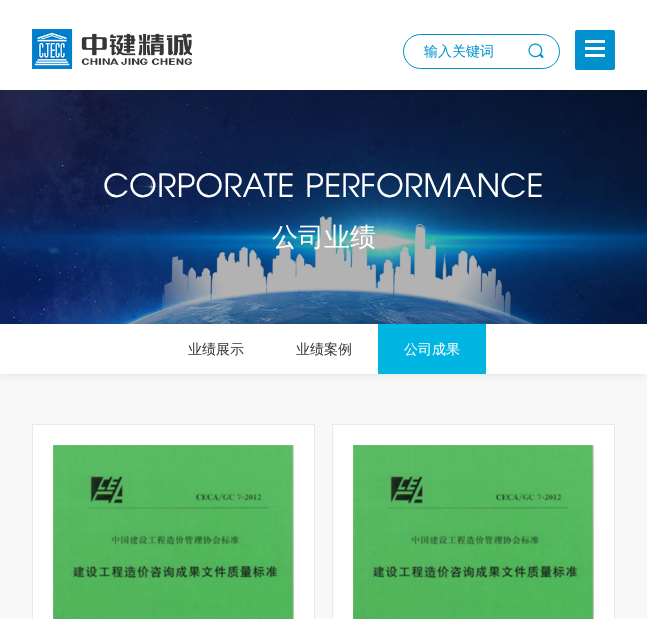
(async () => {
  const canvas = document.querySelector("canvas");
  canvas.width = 647;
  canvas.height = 619;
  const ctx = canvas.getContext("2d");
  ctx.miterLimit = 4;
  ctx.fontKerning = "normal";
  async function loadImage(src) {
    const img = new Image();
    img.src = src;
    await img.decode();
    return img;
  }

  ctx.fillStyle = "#f8f8f8";
  ctx.fillRect(0, 0, 647, 619);
  ctx.fillStyle = "#ffffff";
  ctx.fillRect(0, 0, 647, 90);
  ctx.drawImage(await loadImage("img/1.png"), 32, 29, 160, 40);
  ctx.beginPath();
  ctx.roundRect(403.5, 34.5, 156, 34, 17);
  ctx.strokeStyle = "#0091cc";
  ctx.stroke();
  ctx.drawImage(await loadImage("img/2.png"), 528, 43, 16, 15);
  ctx.fillStyle = "#0091cc";
  ctx.beginPath();
  ctx.roundRect(575, 30, 40, 40, 2);
  ctx.fill();
  for (const [x, y, w, h, color] of [
    [585, 47, 20, 3, "#ffffff"],
    [585, 40, 20, 3, "#ffffff"],
    [585, 54, 20, 3, "#ffffff"],
  ]) {
    ctx.fillStyle = color;
    ctx.fillRect(x, y, w, h);
  }
  ctx.drawImage(await loadImage("img/3.png"), 0, 90, 647, 234);
  ctx.fillStyle = "rgba(0, 0, 0, 0.1)";
  ctx.filter = "blur(5px)";
  ctx.beginPath();
  ctx.rect(0, 324, 647, 50);
  ctx.fill();
  ctx.filter = "none";
  ctx.fillStyle = "#ffffff";
  ctx.fillRect(0, 324, 647, 50);
  ctx.fillStyle = "#00b5e1";
  ctx.fillRect(378, 324, 108, 50);
  ctx.fillStyle = "#ffffff";
  ctx.beginPath();
  ctx.rect(32.5, 424.5, 282, 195);
  ctx.fill();
  ctx.strokeStyle = "#e9e9e9";
  ctx.stroke();
  ctx.drawImage(await loadImage("img/4.png"), 53, 445, 241, 174);
  ctx.beginPath();
  ctx.rect(332.5, 424.5, 282, 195);
  ctx.fill();
  ctx.stroke();
  ctx.drawImage(await loadImage("img/4.png"), 353, 445, 241, 174);
  ctx.font = "500 14px WenQuanYi Zen Hei";
  ctx.fillStyle = "#0091cc";
  ctx.fillText("输入关键词", 424, 56);
  ctx.font = "32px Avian";
  ctx.fillStyle = "#ffffff";
  ctx.fillText("CORPORATE PERFORMANCE", 103, 197);
  ctx.font = "500 26px WenQuanYi Zen Hei";
  ctx.fillText("公司业绩", 272, 246);
  ctx.font = "500 14px WenQuanYi Zen Hei";
  ctx.fillStyle = "#333333";
  ctx.fillText("业绩展示", 188, 354);
  ctx.fillText("业绩案例", 296, 354);
  ctx.fillStyle = "#ffffff";
  ctx.fillText("公司成果", 404, 354);
})();
